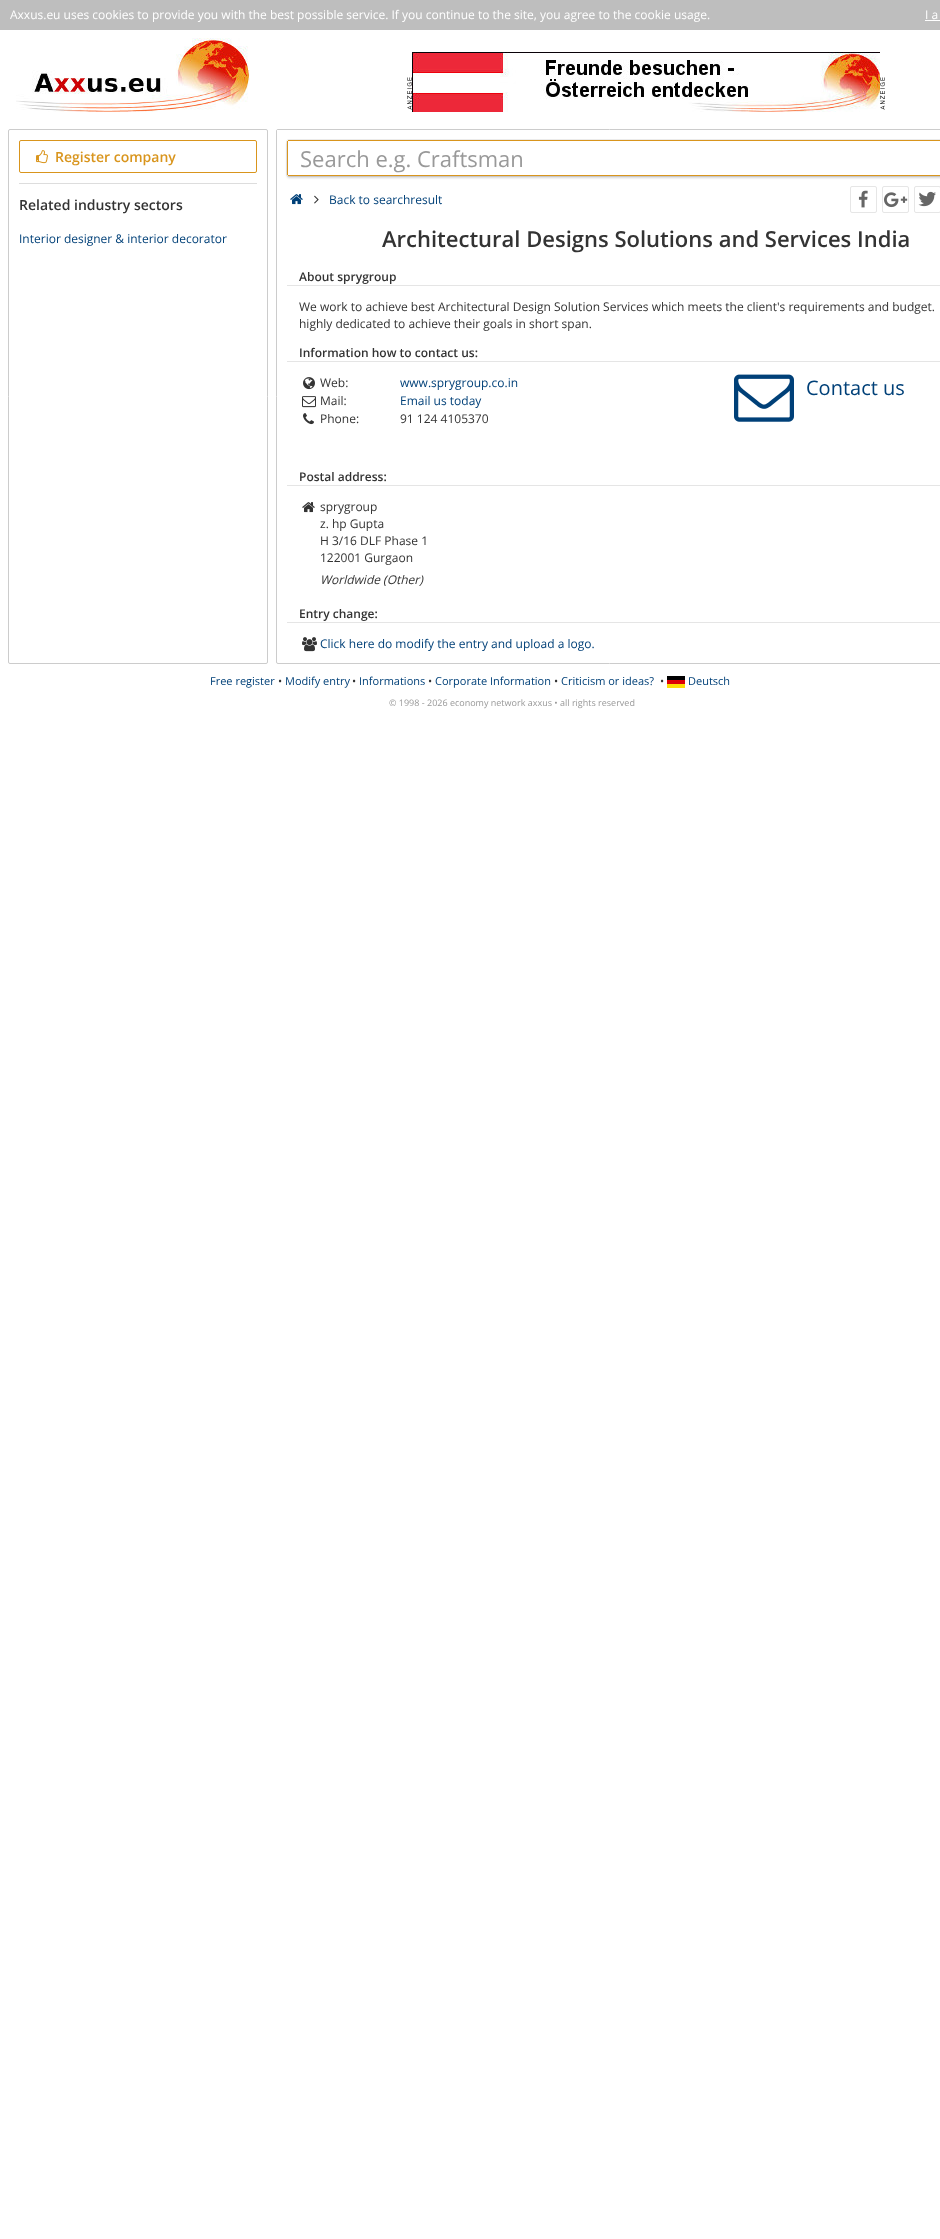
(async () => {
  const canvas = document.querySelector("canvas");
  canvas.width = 940;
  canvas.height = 2239;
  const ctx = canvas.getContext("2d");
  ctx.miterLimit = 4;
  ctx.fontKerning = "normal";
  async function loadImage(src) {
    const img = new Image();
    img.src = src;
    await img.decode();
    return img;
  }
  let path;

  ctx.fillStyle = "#ffffff";
  ctx.fillRect(0, 0, 940, 2239);
  ctx.fillStyle = "#bebebe";
  ctx.fillRect(0, 0, 940, 30);
  ctx.fillStyle = "#ffffff";
  ctx.fillRect(925, 20, 15, 1);
  ctx.drawImage(await loadImage("img/1.png"), 16, 38, 234, 74);
  ctx.drawImage(await loadImage("img/2.png"), 407, 77, 5, 33);
  ctx.drawImage(await loadImage("img/3.png"), 412, 52, 468, 60);
  ctx.drawImage(await loadImage("img/2.png"), 880, 77, 5, 33);
  ctx.beginPath();
  ctx.roundRect(8.5, 129.5, 259, 534, 1.5);
  ctx.strokeStyle = "#cccccc";
  ctx.stroke();
  ctx.beginPath();
  ctx.roundRect(19.5, 140.5, 237, 32, 1.5);
  ctx.strokeStyle = "#d9951d";
  ctx.stroke();
  ctx.drawImage(await loadImage("img/4.png"), 36, 150, 12, 14);
  ctx.fillStyle = "#dddddd";
  ctx.fillRect(19, 183, 238, 1);
  ctx.beginPath();
  ctx.roundRect(276.5, 129.5, 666, 534, 1.5);
  ctx.strokeStyle = "#cccccc";
  ctx.stroke();
  ctx.fillStyle = "#ffffff";
  ctx.fillRect(277, 130, 1, 1);
  path = new Path2D("M289 139.5H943.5V176.5H289C287.5 176.5 286.5 175.5 286.5 174V142C286.5 140.5 287.5 139.5 289 139.5Z");
  ctx.strokeStyle = "#ebebeb";
  ctx.stroke(path);
  ctx.save();
  path = new Path2D("M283 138H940V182H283ZM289 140H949V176H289C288 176 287 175 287 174V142C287 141 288 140 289 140Z");
  ctx.clip(path, "evenodd");
  ctx.fillStyle = "rgba(0, 0, 0, 0.16)";
  ctx.filter = "blur(1px)";
  ctx.beginPath();
  ctx.roundRect(287, 142, 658, 36, 2);
  ctx.fill();
  ctx.filter = "none";
  ctx.restore();
  for (const [x, y, w, h, color] of [
    [288, 140, 652, 1, "#d9951d"],
    [288, 175, 652, 1, "#d9951d"],
    [287, 141, 1, 34, "#d9951d"],
  ]) {
    ctx.fillStyle = color;
    ctx.fillRect(x, y, w, h);
  }
  ctx.drawImage(await loadImage("img/5.png"), 290, 194, 13, 11);
  ctx.drawImage(await loadImage("img/6.png"), 314, 195, 5, 9);
  ctx.beginPath();
  ctx.roundRect(850.5, 186.5, 26, 26, 1.5);
  ctx.strokeStyle = "#e6e6e6";
  ctx.stroke();
  ctx.drawImage(await loadImage("img/7.png"), 858, 190, 10, 18);
  ctx.beginPath();
  ctx.roundRect(882.5, 186.5, 26, 26, 1.5);
  ctx.stroke();
  ctx.drawImage(await loadImage("img/8.png"), 884, 192, 24, 16);
  ctx.beginPath();
  ctx.roundRect(914.5, 186.5, 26, 26, 1.5);
  ctx.stroke();
  ctx.drawImage(await loadImage("img/9.png"), 918, 191, 18, 16);
  ctx.fillStyle = "#e5e5e5";
  ctx.fillRect(287, 285, 653, 1);
  ctx.fillRect(287, 361, 653, 1);
  ctx.drawImage(await loadImage("img/10.png"), 303, 377, 12, 13);
  ctx.drawImage(await loadImage("img/11.png"), 302, 396, 14, 12);
  ctx.drawImage(await loadImage("img/12.png"), 303, 413, 11, 12);
  ctx.drawImage(await loadImage("img/13.png"), 734, 374, 60, 48);
  ctx.fillRect(287, 485, 653, 1);
  ctx.drawImage(await loadImage("img/14.png"), 302, 502, 13, 11);
  ctx.fillRect(287, 622, 653, 1);
  ctx.drawImage(await loadImage("img/15.png"), 302, 637, 15, 15);
  ctx.drawImage(await loadImage("img/16.png"), 667, 676, 18, 12);
  ctx.font = "12px Open Sans";
  ctx.fillStyle = "#ffffff";
  ctx.fillText("Axxus.eu uses cookies to provide you with the best possible service. If you continue to the site, you agree to the cookie usage.", 10, 19);
  ctx.fillText("I a", 925, 19);
  ctx.font = "600 14px Open Sans";
  ctx.fillStyle = "#d9951d";
  ctx.fillText("Register company", 55, 162);
  ctx.fillStyle = "#333333";
  ctx.fillText("Related industry sectors", 19, 210);
  ctx.font = "12px Open Sans";
  ctx.fillStyle = "#004078";
  ctx.fillText("Interior designer & interior decorator", 19, 243);
  ctx.font = "22px Open Sans";
  ctx.fillStyle = "#999999";
  ctx.fillText("Search e.g. Craftsman", 300, 167);
  ctx.font = "12px Open Sans";
  ctx.fillStyle = "#004078";
  ctx.fillText("Back to searchresult", 329, 204);
  ctx.font = "600 22px Open Sans";
  ctx.fillStyle = "#333333";
  ctx.fillText("Architectural Designs Solutions and Services India", 382, 247);
  ctx.font = "600 12px Open Sans";
  ctx.fillText("About sprygroup", 299, 281);
  ctx.font = "12px Open Sans";
  ctx.fillText("We work to achieve best Architectural Design Solution Services which meets the client's requirements and budget.", 299, 311);
  ctx.fillText("highly dedicated to achieve their goals in short span.", 299, 328);
  ctx.font = "600 12px Open Sans";
  ctx.fillText("Information how to contact us:", 299, 357);
  ctx.font = "12px Open Sans";
  ctx.fillText("Web:", 320, 387);
  ctx.fillStyle = "#004078";
  ctx.fillText("www.sprygroup.co.in", 400, 387);
  ctx.fillStyle = "#333333";
  ctx.fillText("Mail:", 320, 405);
  ctx.fillStyle = "#004078";
  ctx.fillText("Email us today", 400, 405);
  ctx.fillStyle = "#333333";
  ctx.fillText("Phone:", 320, 423);
  ctx.fillText("91 124 4105370", 400, 423);
  ctx.font = "20px Open Sans";
  ctx.fillStyle = "#004078";
  ctx.fillText("Contact us", 806, 395);
  ctx.font = "600 12px Open Sans";
  ctx.fillStyle = "#333333";
  ctx.fillText("Postal address:", 299, 481);
  ctx.font = "12px Open Sans";
  for (const [text, x, y] of [
    ["sprygroup", 320, 511],
    ["z. hp Gupta", 320, 528],
    ["H 3/16 DLF Phase 1", 320, 545],
    ["122001 Gurgaon", 320, 562],
  ]) {
    ctx.fillText(text, x, y);
  }
  ctx.font = "italic 12px Open Sans";
  ctx.fillText("Worldwide (Other)", 320, 584);
  ctx.font = "600 12px Open Sans";
  ctx.fillText("Entry change:", 299, 618);
  ctx.font = "12px Open Sans";
  ctx.fillStyle = "#004078";
  ctx.fillText("Click here do modify the entry and upload a logo.", 320, 648);
  ctx.font = "11px Open Sans";
  ctx.fillText("Free register", 210, 685);
  ctx.fillStyle = "#333333";
  ctx.fillText("•", 278, 685);
  ctx.fillStyle = "#004078";
  ctx.fillText("Modify entry", 285, 685);
  ctx.fillStyle = "#333333";
  ctx.fillText("•", 352, 685);
  ctx.fillStyle = "#004078";
  ctx.fillText("Informations", 359, 685);
  ctx.fillStyle = "#333333";
  ctx.fillText("•", 428, 685);
  ctx.fillStyle = "#004078";
  ctx.fillText("Corporate Information", 435, 685);
  ctx.fillStyle = "#333333";
  ctx.fillText("•", 554, 685);
  ctx.fillStyle = "#004078";
  ctx.fillText("Criticism or ideas?", 561, 685);
  ctx.fillStyle = "#333333";
  ctx.fillText("•", 660, 685);
  ctx.fillStyle = "#004078";
  ctx.fillText("Deutsch", 688, 685);
  ctx.font = "9px Open Sans";
  ctx.fillStyle = "#999999";
  ctx.fillText("© 1998 - 2026 economy network axxus • all rights reserved", 389, 706);
})();
